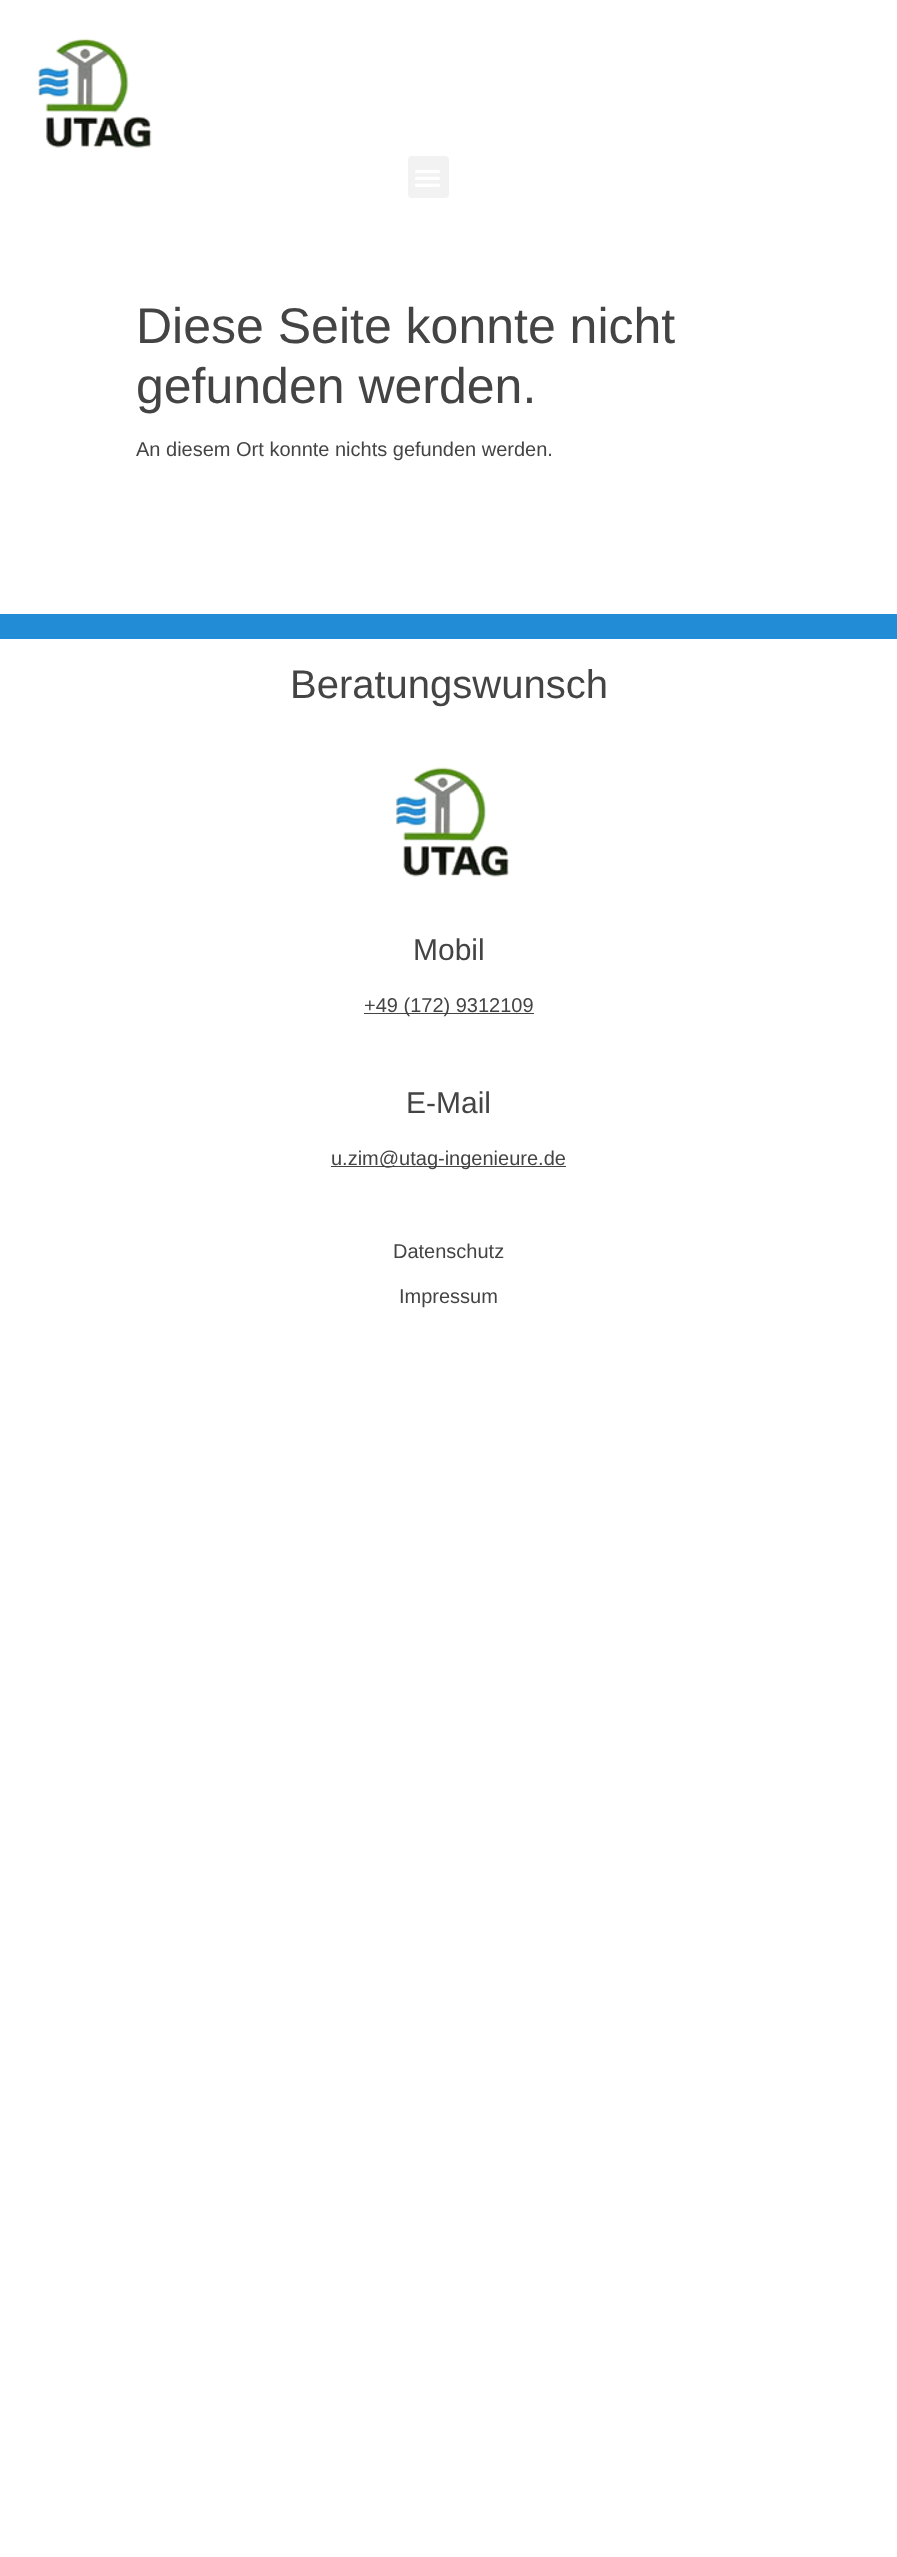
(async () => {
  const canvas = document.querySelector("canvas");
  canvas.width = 897;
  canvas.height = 2557;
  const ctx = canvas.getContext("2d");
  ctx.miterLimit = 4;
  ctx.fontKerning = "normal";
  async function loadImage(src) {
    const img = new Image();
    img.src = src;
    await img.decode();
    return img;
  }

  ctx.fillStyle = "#ffffff";
  ctx.fillRect(0, 0, 897, 2557);
  ctx.drawImage(await loadImage("img/1.png"), 35, 38, 117, 110);
  ctx.fillStyle = "#f2f2f2";
  ctx.beginPath();
  ctx.roundRect(408, 156, 41, 42, 4);
  ctx.fill();
  ctx.drawImage(await loadImage("img/2.png"), 415, 170, 25, 17);
  ctx.fillStyle = "#228cd7";
  ctx.fillRect(0, 614, 897, 25);
  ctx.drawImage(await loadImage("img/3.png"), 393, 767, 116, 110);
  ctx.fillStyle = "#444444";
  ctx.fillRect(364, 1013, 170, 1);
  ctx.fillRect(331, 1166, 235, 1);
  ctx.font = "50px Liberation Sans";
  ctx.fillText("Diese Seite konnte nicht", 136, 343);
  ctx.fillText("gefunden werden.", 136, 403);
  ctx.font = "20px Liberation Sans";
  ctx.fillText("An diesem Ort konnte nichts gefunden werden.", 136, 456);
  ctx.font = "40px Liberation Sans";
  ctx.fillText("Beratungswunsch", 290, 698);
  ctx.font = "30px Liberation Sans";
  ctx.fillText("Mobil", 413, 960);
  ctx.font = "20px Liberation Sans";
  ctx.fillText("+49 (172) 9312109", 364, 1012);
  ctx.font = "30px Liberation Sans";
  ctx.fillText("E-Mail", 406, 1113);
  ctx.font = "20px Liberation Sans";
  for (const [text, x, y] of [
    ["u.zim@utag-ingenieure.de", 331, 1165],
    ["Datenschutz", 393, 1258],
    ["Impressum", 399, 1303],
  ]) {
    ctx.fillText(text, x, y);
  }
})();
